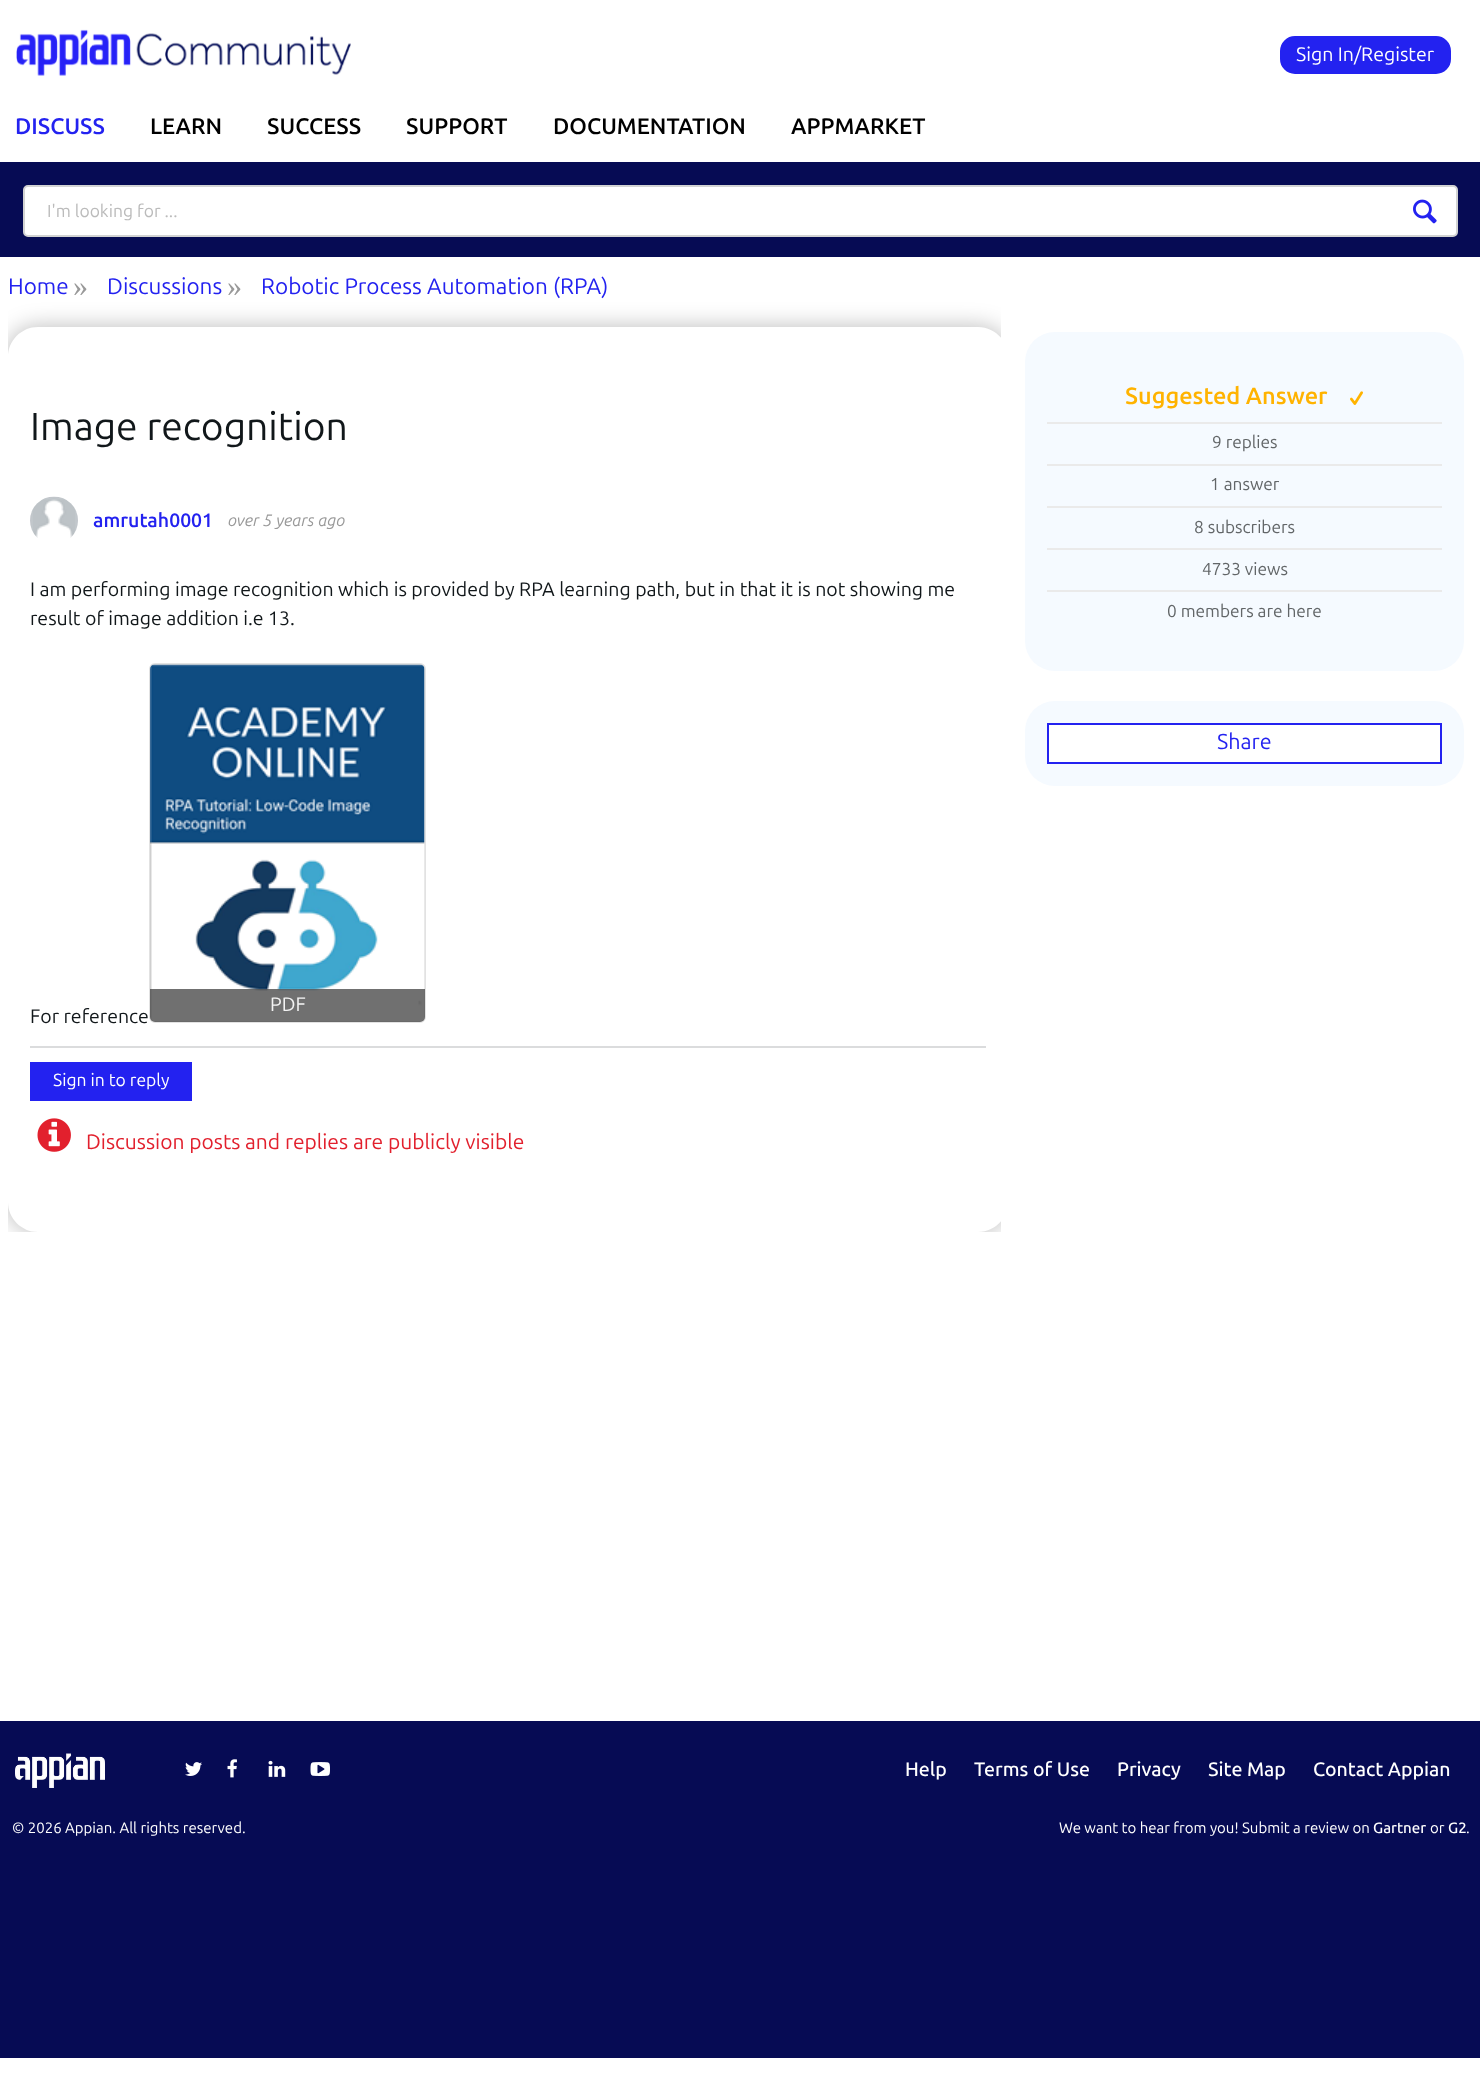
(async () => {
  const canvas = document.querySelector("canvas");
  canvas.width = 1480;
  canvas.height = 2077;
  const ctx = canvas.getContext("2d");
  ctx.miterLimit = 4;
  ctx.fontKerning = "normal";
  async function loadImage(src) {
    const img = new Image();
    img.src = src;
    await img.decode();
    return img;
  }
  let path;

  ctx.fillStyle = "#ffffff";
  ctx.fillRect(0, 0, 1480, 2077);
  ctx.drawImage(await loadImage("img/1.png"), 16, 29, 335, 47);
  ctx.fillStyle = "#2322f0";
  ctx.beginPath();
  ctx.roundRect(1281, 37, 169, 36, 14);
  ctx.fill();
  ctx.strokeStyle = "#2322f0";
  ctx.lineWidth = 2;
  ctx.stroke();
  ctx.fillStyle = "#060b54";
  ctx.fillRect(0, 162, 1480, 95);
  ctx.fillStyle = "#ffffff";
  ctx.beginPath();
  ctx.roundRect(24, 186, 1433, 50, 4);
  ctx.fill();
  ctx.strokeStyle = "#d2d3d3";
  ctx.stroke();
  ctx.drawImage(await loadImage("img/2.png"), 1413, 199, 24, 25);
  ctx.save();
  ctx.beginPath();
  ctx.rect(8, 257, 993, 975);
  ctx.clip();
  path = new Path2D("M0 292H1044V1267H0ZM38 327H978C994.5 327 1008 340.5 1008 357V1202C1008 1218.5 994.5 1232 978 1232H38C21.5 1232 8 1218.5 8 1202V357C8 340.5 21.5 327 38 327Z");
  ctx.clip(path, "evenodd");
  ctx.fillStyle = "rgba(0, 0, 0, 0.25)";
  ctx.filter = "blur(11px)";
  ctx.beginPath();
  ctx.roundRect(6, 326, 1004, 907, 32);
  ctx.fill();
  ctx.filter = "none";
  ctx.restore();
  ctx.drawImage(await loadImage("img/3.png"), 30, 496, 48, 42);
  ctx.fillStyle = "#dbdcdd";
  ctx.fillRect(30, 1046, 956, 2);
  ctx.beginPath();
  ctx.roundRect(150, 664, 275, 358, 5);
  ctx.strokeStyle = "#e2e2e2";
  ctx.stroke();
  ctx.drawImage(await loadImage("img/4.png"), 150, 664, 275, 356);
  ctx.fillStyle = "rgba(64, 64, 64, 0.75)";
  ctx.beginPath();
  ctx.roundRect(150, 989, 275, 33, [0, 0, 5, 5]);
  ctx.fill();
  ctx.fillStyle = "#2322f0";
  ctx.fillRect(30, 1062, 162, 39);
  ctx.drawImage(await loadImage("img/5.png"), 37, 1118, 34, 34);
  ctx.fillStyle = "#f5faff";
  ctx.beginPath();
  ctx.roundRect(1025, 332, 439, 339, 30);
  ctx.fill();
  ctx.fillStyle = "#eaeaea";
  ctx.fillRect(1047, 422, 395, 2);
  ctx.drawImage(await loadImage("img/6.png"), 1350, 391, 13, 14);
  for (const [x, y, w, h, color] of [
    [1047, 464, 395, 2, "#eaeaea"],
    [1047, 506, 395, 2, "#eaeaea"],
    [1047, 548, 395, 2, "#eaeaea"],
    [1047, 590, 395, 2, "#eaeaea"],
  ]) {
    ctx.fillStyle = color;
    ctx.fillRect(x, y, w, h);
  }
  ctx.fillStyle = "#f5faff";
  ctx.beginPath();
  ctx.roundRect(1025, 701, 439, 85, 30);
  ctx.fill();
  ctx.fillStyle = "#ffffff";
  ctx.beginPath();
  ctx.rect(1048, 724, 393, 39);
  ctx.fill();
  ctx.strokeStyle = "#2322f0";
  ctx.stroke();
  ctx.fillStyle = "#060b54";
  ctx.fillRect(0, 1721, 1480, 337);
  ctx.drawImage(await loadImage("img/7.png"), 15, 1753, 90, 35);
  ctx.drawImage(await loadImage("img/8.png"), 185, 1762, 17, 14);
  ctx.drawImage(await loadImage("img/9.png"), 227, 1759, 10, 19);
  ctx.drawImage(await loadImage("img/10.png"), 268, 1760, 18, 17);
  ctx.drawImage(await loadImage("img/11.png"), 310, 1762, 20, 14);
  ctx.font = "19.5px Ubuntu Sans";
  ctx.fillStyle = "#ffffff";
  ctx.fillText("Sign In/Register", 1296, 61);
  ctx.font = "600 22.5px Ubuntu Sans";
  ctx.fillStyle = "#2322f0";
  ctx.fillText("DISCUSS", 15, 134);
  ctx.fillStyle = "#000000";
  for (const [text, x, y] of [
    ["LEARN", 150, 134],
    ["SUCCESS", 267, 134],
    ["SUPPORT", 406, 134],
    ["DOCUMENTATION", 553, 134],
    ["APPMARKET", 791, 134],
  ]) {
    ctx.fillText(text, x, y);
  }
  ctx.font = "17.5px Ubuntu Sans";
  ctx.fillStyle = "#bbbbbb";
  ctx.fillText("I'm looking for ...", 47, 217);
  ctx.font = "22.5px Ubuntu Sans";
  ctx.fillStyle = "#2322f0";
  ctx.fillText("Home", 8, 294);
  ctx.font = "30px Liberation Serif";
  ctx.fillStyle = "#999999";
  ctx.fillText("»", 73, 296);
  ctx.font = "22.5px Ubuntu Sans";
  ctx.fillStyle = "#2322f0";
  ctx.fillText("Discussions", 107, 294);
  ctx.font = "30px Liberation Serif";
  ctx.fillStyle = "#999999";
  ctx.fillText("»", 227, 296);
  ctx.font = "22.5px Ubuntu Sans";
  ctx.fillStyle = "#2322f0";
  ctx.fillText("Robotic Process Automation (RPA)", 261, 294);
  ctx.font = "39px Ubuntu Sans";
  ctx.fillStyle = "#11171a";
  ctx.fillText("Image recognition", 30, 440);
  ctx.font = "600 19.5px Ubuntu Sans";
  ctx.fillStyle = "#2322f0";
  ctx.fillText("amrutah0001", 93, 527);
  ctx.font = "italic 16.5px Ubuntu Sans";
  ctx.fillStyle = "#999999";
  ctx.fillText("over 5 years ago", 228, 526);
  ctx.font = "19.5px Ubuntu Sans";
  ctx.fillStyle = "#11171a";
  ctx.fillText("I am performing image recognition which is provided by RPA learning path, but in that it is not showing me", 30, 596);
  ctx.fillText("result of image addition i.e 13.", 30, 625);
  ctx.fillStyle = "#f3f3f3";
  ctx.fillText("PDF", 270, 1011);
  ctx.fillStyle = "#11171a";
  ctx.fillText("For reference", 30, 1023);
  ctx.font = "17.5px Ubuntu Sans";
  ctx.fillStyle = "#ffffff";
  ctx.fillText("Sign in to reply", 53, 1086);
  ctx.font = "21px Ubuntu Sans";
  ctx.fillStyle = "#e2202d";
  ctx.fillText("Discussion posts and replies are publicly visible", 86, 1149);
  ctx.font = "600 23.5px Ubuntu Sans";
  ctx.fillStyle = "#ffb300";
  ctx.fillText("Suggested Answer", 1125, 404);
  ctx.font = "17.25px Ubuntu Sans";
  ctx.fillStyle = "#626668";
  for (const [text, x, y] of [
    ["9 replies", 1212, 448],
    ["1 answer", 1210, 490],
    ["8 subscribers", 1194, 533],
    ["4733 views", 1202, 575],
    ["0 members are here", 1167, 617],
  ]) {
    ctx.fillText(text, x, y);
  }
  ctx.font = "21.5px Ubuntu Sans";
  ctx.fillStyle = "#2322f0";
  ctx.fillText("Share", 1217, 749);
  ctx.font = "500 19.5px Ubuntu Sans";
  ctx.fillStyle = "#ffffff";
  for (const [text, x, y] of [
    ["Help", 905, 1776],
    ["Terms of Use", 974, 1776],
    ["Privacy", 1117, 1776],
    ["Site Map", 1208, 1776],
    ["Contact Appian", 1313, 1776],
  ]) {
    ctx.fillText(text, x, y);
  }
  ctx.font = "15px Ubuntu Sans";
  ctx.fillText("© 2026 Appian. All rights reserved.", 12, 1833);
  ctx.fillText("We want to hear from you! Submit a review on", 1059, 1833);
  ctx.font = "500 15px Ubuntu Sans";
  ctx.fillText("Gartner", 1373, 1833);
  ctx.font = "15px Ubuntu Sans";
  ctx.fillText("or", 1430, 1833);
  ctx.font = "500 15px Ubuntu Sans";
  ctx.fillText("G2", 1448, 1833);
  ctx.font = "15px Ubuntu Sans";
  ctx.fillText(".", 1466, 1833);
})();
